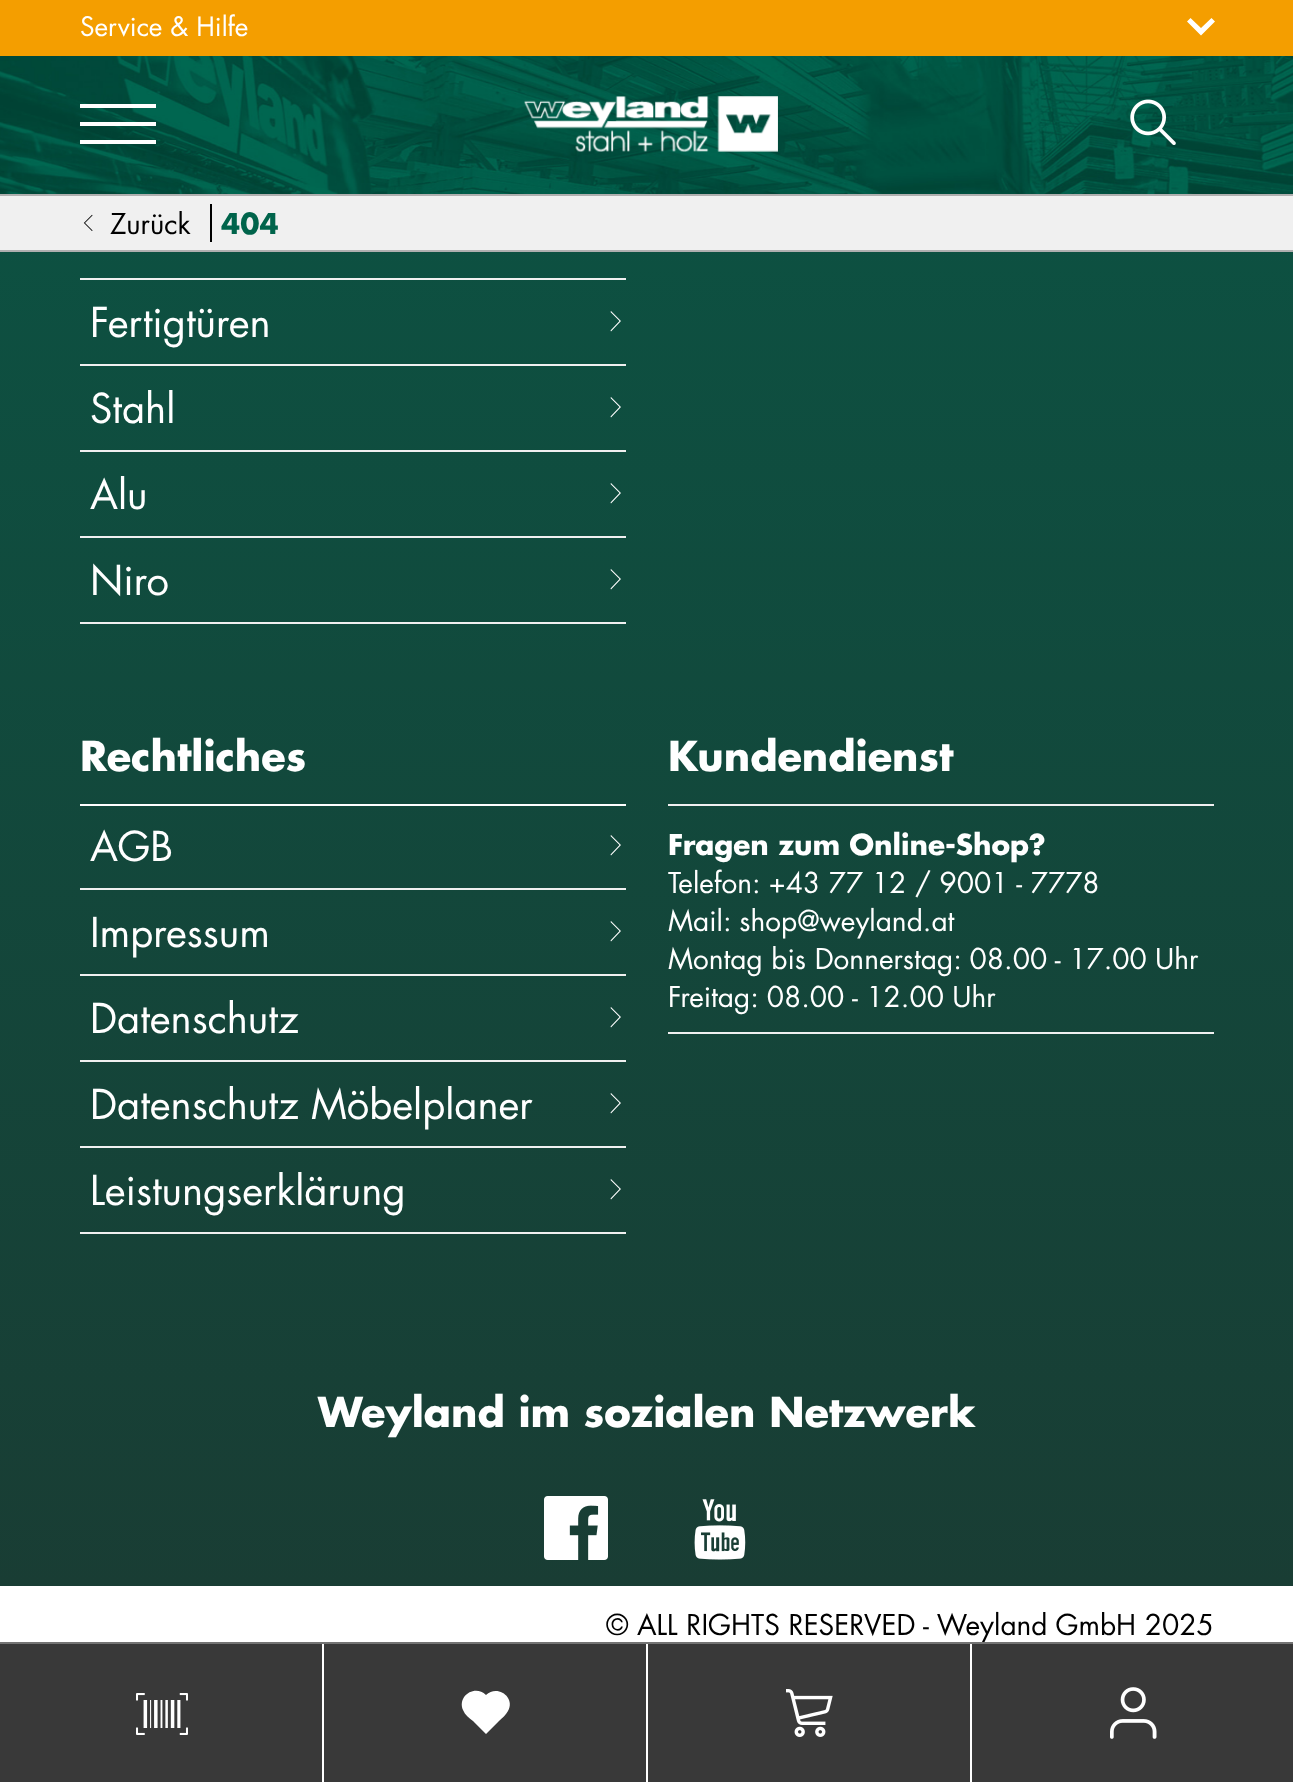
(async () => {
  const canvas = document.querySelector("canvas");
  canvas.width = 1293;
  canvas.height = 1782;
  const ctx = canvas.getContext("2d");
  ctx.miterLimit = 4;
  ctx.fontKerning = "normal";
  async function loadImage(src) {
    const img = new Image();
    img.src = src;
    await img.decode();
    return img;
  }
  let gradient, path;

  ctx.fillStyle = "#ffffff";
  ctx.fillRect(0, 0, 1293, 1782);
  ctx.fillStyle = "#f49e00";
  ctx.fillRect(0, 0, 1293, 56);
  ctx.fillStyle = "#ffffff";
  path = new Path2D("M1201 35.5L1187 21.5L1190.5 18L1201 28L1211.5 18L1215 21.5Z");
  ctx.fill(path);
  ctx.drawImage(await loadImage("img/1.png"), 0, 56, 1293, 138);
  for (const [x, y, w, h, color] of [
    [80, 104, 76, 4, "#ffffff"],
    [80, 122, 76, 4, "#ffffff"],
    [80, 140, 76, 4, "#ffffff"],
  ]) {
    ctx.fillStyle = color;
    ctx.fillRect(x, y, w, h);
  }
  ctx.drawImage(await loadImage("img/2.png"), 524, 96, 254, 56);
  ctx.drawImage(await loadImage("img/3.png"), 1130, 99, 46, 46);
  for (const [x, y, w, h, color] of [
    [0, 196, 1293, 54, "#f0f0f0"],
    [0, 194, 1293, 2, "#afafaf"],
    [0, 250, 1293, 2, "#afafaf"],
    [210, 204, 2, 38, "#000000"],
  ]) {
    ctx.fillStyle = color;
    ctx.fillRect(x, y, w, h);
  }
  ctx.drawImage(await loadImage("img/4.png"), 83, 214, 10, 17);
  gradient = ctx.createLinearGradient(647, -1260, 647, 1586);
  gradient.addColorStop(0, "#006650");
  gradient.addColorStop(1, "#193d34");
  ctx.fillStyle = gradient;
  ctx.fillRect(0, 252, 1293, 1334);
  ctx.fillStyle = "#f0f0f0";
  ctx.fillRect(80, 278, 546, 2);
  ctx.fillRect(80, 364, 546, 2);
  ctx.fillStyle = "#ffffff";
  path = new Path2D("M611 331.5L610.5 330.5L619.5 321L610.5 312L611 311L621 321Z");
  ctx.fill(path);
  ctx.fillStyle = "#f0f0f0";
  ctx.fillRect(80, 450, 546, 2);
  ctx.fillStyle = "#ffffff";
  path = new Path2D("M611 417.5L610.5 416.5L619.5 407L610.5 398L611 397L621 407Z");
  ctx.fill(path);
  ctx.fillStyle = "#f0f0f0";
  ctx.fillRect(80, 536, 546, 2);
  ctx.fillStyle = "#ffffff";
  path = new Path2D("M611 503.5L610.5 502.5L619.5 493L610.5 484L611 483L621 493Z");
  ctx.fill(path);
  ctx.fillStyle = "#f0f0f0";
  ctx.fillRect(80, 622, 546, 2);
  ctx.fillStyle = "#ffffff";
  path = new Path2D("M611 589.5L610.5 588.5L619.5 579L610.5 570L611 569L621 579Z");
  ctx.fill(path);
  ctx.fillRect(80, 804, 546, 2);
  ctx.fillStyle = "#f0f0f0";
  ctx.fillRect(80, 888, 546, 2);
  ctx.fillStyle = "#ffffff";
  path = new Path2D("M611 855.5L610.5 854.5L619.5 845L610.5 836L611 835L621 845Z");
  ctx.fill(path);
  ctx.fillStyle = "#f0f0f0";
  ctx.fillRect(80, 974, 546, 2);
  ctx.fillStyle = "#ffffff";
  path = new Path2D("M611 941.5L610.5 940.5L619.5 931L610.5 922L611 921L621 931Z");
  ctx.fill(path);
  ctx.fillStyle = "#f0f0f0";
  ctx.fillRect(80, 1060, 546, 2);
  ctx.fillStyle = "#ffffff";
  path = new Path2D("M611 1027.5L610.5 1026.5L619.5 1017L610.5 1008L611 1007L621 1017Z");
  ctx.fill(path);
  ctx.fillStyle = "#f0f0f0";
  ctx.fillRect(80, 1146, 546, 2);
  ctx.fillStyle = "#ffffff";
  path = new Path2D("M611 1113.5L610.5 1112.5L619.5 1103L610.5 1094L611 1093L621 1103Z");
  ctx.fill(path);
  ctx.fillStyle = "#f0f0f0";
  ctx.fillRect(80, 1232, 546, 2);
  ctx.fillStyle = "#ffffff";
  path = new Path2D("M611 1199.5L610.5 1198.5L619.5 1189L610.5 1180L611 1179L621 1189Z");
  ctx.fill(path);
  ctx.fillStyle = "#f0f0f0";
  ctx.fillRect(668, 804, 546, 2);
  ctx.fillRect(668, 1032, 546, 2);
  ctx.drawImage(await loadImage("img/5.png"), 544, 1496, 64, 64);
  ctx.drawImage(await loadImage("img/6.png"), 694, 1499, 52, 61);
  ctx.fillStyle = "#393939";
  ctx.fillRect(0, 1644, 1293, 138);
  ctx.fillStyle = "#ffffff";
  ctx.fillRect(322, 1644, 2, 138);
  ctx.drawImage(await loadImage("img/7.png"), 136, 1693, 52, 42);
  ctx.fillRect(646, 1644, 2, 138);
  path = new Path2D("M486 1734L473 1721C469 1718 465 1715 463 1710C457 1696 475 1684 486 1695C497 1684 516 1697 508 1711C506 1715 502 1718 499 1721Z");
  ctx.fill(path);
  ctx.fillRect(970, 1644, 2, 138);
  ctx.drawImage(await loadImage("img/8.png"), 786, 1689, 47, 48);
  ctx.drawImage(await loadImage("img/9.png"), 1110, 1687, 47, 52);
  ctx.font = "26px Futura";
  ctx.fillText("Service & Hilfe", 80, 36);
  ctx.font = "28px Futura";
  ctx.fillStyle = "#000000";
  ctx.fillText("Zurück", 110, 234);
  ctx.font = "bold 28px Futura";
  ctx.fillStyle = "#00644b";
  ctx.fillText("404", 221, 234);
  ctx.font = "40px Futura";
  ctx.fillStyle = "#ffffff";
  for (const [text, x, y] of [
    ["Fertigtüren", 90, 337],
    ["Stahl", 90, 423],
    ["Alu", 90, 509],
    ["Niro", 90, 595],
  ]) {
    ctx.fillText(text, x, y);
  }
  ctx.font = "bold 40px Futura";
  ctx.fillText("Rechtliches", 80, 771);
  ctx.font = "40px Futura";
  for (const [text, x, y] of [
    ["AGB", 90, 861],
    ["Impressum", 90, 947],
    ["Datenschutz", 90, 1033],
    ["Datenschutz Möbelplaner", 90, 1119],
    ["Leistungserklärung", 90, 1205],
  ]) {
    ctx.fillText(text, x, y);
  }
  ctx.font = "bold 40px Futura";
  ctx.fillText("Kundendienst", 668, 771);
  ctx.font = "bold 28px Futura";
  ctx.fillText("Fragen zum Online-Shop?", 668, 855);
  ctx.font = "28px Futura";
  for (const [text, x, y] of [
    ["Telefon: +43 77 12 / 9001 - 7778", 668, 893],
    ["Mail: shop@weyland.at", 668, 931],
    ["Montag bis Donnerstag: 08.00 - 17.00 Uhr", 668, 969],
    ["Freitag: 08.00 - 12.00 Uhr", 668, 1007],
  ]) {
    ctx.fillText(text, x, y);
  }
  ctx.font = "bold 40px Futura";
  ctx.fillText("Weyland im sozialen Netzwerk", 318, 1427);
  ctx.font = "28px Futura";
  ctx.fillStyle = "#000000";
  ctx.fillText("© ALL RIGHTS RESERVED - Weyland GmbH 2025", 606, 1635);
  ctx.fillStyle = "#747474";
  ctx.fillRect(0, 1642, 1293, 2);
})();
